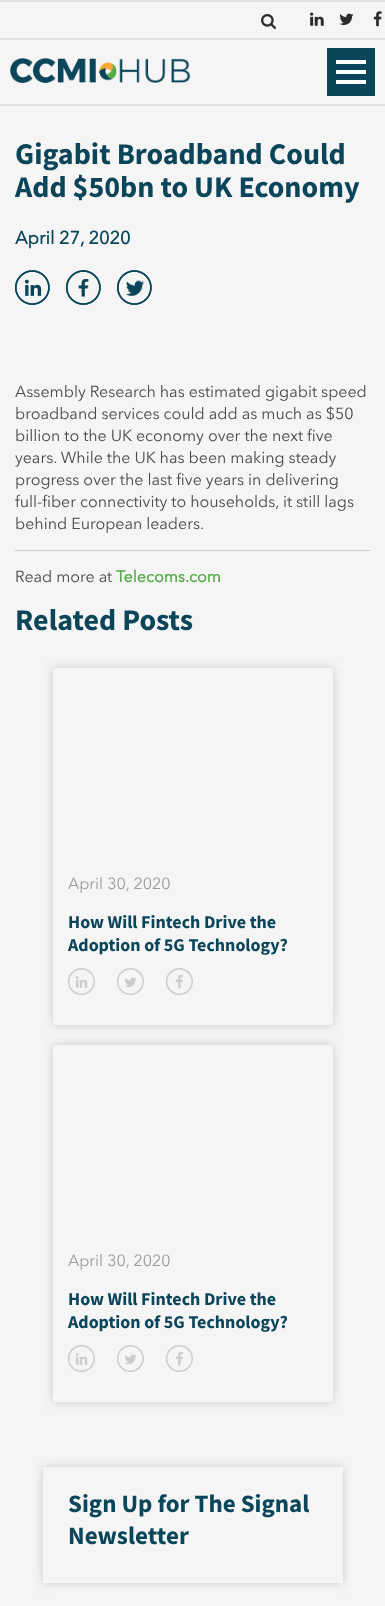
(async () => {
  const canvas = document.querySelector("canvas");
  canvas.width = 385;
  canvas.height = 1606;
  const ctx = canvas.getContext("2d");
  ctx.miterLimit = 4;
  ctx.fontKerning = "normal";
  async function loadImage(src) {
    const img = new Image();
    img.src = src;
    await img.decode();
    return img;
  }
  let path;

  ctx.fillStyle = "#f5f5f5";
  ctx.fillRect(0, 0, 385, 1606);
  ctx.fillStyle = "#e1e1e1";
  ctx.fillRect(0, 0, 385, 2);
  ctx.fillRect(0, 38, 385, 2);
  ctx.drawImage(await loadImage("img/1.png"), 261, 14, 15, 15);
  ctx.drawImage(await loadImage("img/2.png"), 310, 12, 14, 14);
  ctx.drawImage(await loadImage("img/3.png"), 339, 13, 15, 12);
  ctx.drawImage(await loadImage("img/4.png"), 373, 11, 9, 16);
  ctx.fillRect(0, 104, 385, 2);
  ctx.drawImage(await loadImage("img/5.png"), 10, 58, 180, 25);
  for (const [x, y, w, h, color] of [
    [327, 48, 48, 48, "#0b455a"],
    [336, 70, 30, 4, "#ffffff"],
    [336, 60, 30, 4, "#ffffff"],
    [336, 80, 30, 4, "#ffffff"],
  ]) {
    ctx.fillStyle = color;
    ctx.fillRect(x, y, w, h);
  }
  ctx.drawImage(await loadImage("img/6.png"), 15, 270, 35, 35);
  ctx.drawImage(await loadImage("img/7.png"), 66, 270, 35, 35);
  ctx.drawImage(await loadImage("img/8.png"), 117, 270, 35, 35);
  ctx.fillStyle = "#cccccc";
  ctx.fillRect(15, 550, 355, 1);
  ctx.save();
  path = new Path2D("M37 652H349V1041H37ZM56 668H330C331.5 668 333 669.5 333 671V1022C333 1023.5 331.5 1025 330 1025H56C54.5 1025 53 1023.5 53 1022V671C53 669.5 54.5 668 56 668Z");
  ctx.clip(path, "evenodd");
  ctx.fillStyle = "#c8c8c8";
  ctx.filter = "blur(5px)";
  ctx.beginPath();
  ctx.roundRect(53, 668, 280, 357, 3);
  ctx.fill();
  ctx.filter = "none";
  ctx.restore();
  ctx.drawImage(await loadImage("img/9.png"), 68, 968, 27, 27);
  ctx.drawImage(await loadImage("img/10.png"), 117, 968, 27, 27);
  ctx.drawImage(await loadImage("img/11.png"), 166, 968, 27, 27);
  ctx.save();
  path = new Path2D("M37 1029H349V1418H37ZM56 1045H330C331.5 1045 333 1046.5 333 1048V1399C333 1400.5 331.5 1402 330 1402H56C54.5 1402 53 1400.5 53 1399V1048C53 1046.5 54.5 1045 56 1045Z");
  ctx.clip(path, "evenodd");
  ctx.fillStyle = "#c8c8c8";
  ctx.filter = "blur(5px)";
  ctx.beginPath();
  ctx.roundRect(53, 1045, 280, 357, 3);
  ctx.fill();
  ctx.filter = "none";
  ctx.restore();
  ctx.drawImage(await loadImage("img/9.png"), 68, 1345, 27, 27);
  ctx.drawImage(await loadImage("img/10.png"), 117, 1345, 27, 27);
  ctx.drawImage(await loadImage("img/11.png"), 166, 1345, 27, 27);
  ctx.save();
  path = new Path2D("M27 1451H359V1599H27ZM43 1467H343V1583H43Z");
  ctx.clip(path, "evenodd");
  ctx.fillStyle = "#c8c8c8";
  ctx.filter = "blur(5px)";
  ctx.beginPath();
  ctx.rect(43, 1467, 300, 116);
  ctx.fill();
  ctx.filter = "none";
  ctx.restore();
  ctx.font = "bold 30px Source Sans Pro";
  ctx.fillStyle = "#0b455a";
  ctx.fillText("Gigabit Broadband Could", 15, 164);
  ctx.fillText("Add $50bn to UK Economy", 15, 197);
  ctx.font = "bold 18px Avenir Next";
  ctx.fillText("April 27, 2020", 15, 244);
  ctx.font = "16px Avenir Next";
  ctx.fillStyle = "#4a4a4b";
  for (const [text, x, y] of [
    ["Assembly Research has estimated gigabit speed", 15, 397],
    ["broadband services could add as much as $50", 15, 419],
    ["billion to the UK economy over the next five", 15, 441],
    ["years. While the UK has been making steady", 15, 463],
    ["progress over the last five years in delivering", 15, 485],
    ["full-fiber connectivity to households, it still lags", 15, 507],
    ["behind European leaders.", 15, 529],
    ["Read more at", 15, 582],
  ]) {
    ctx.fillText(text, x, y);
  }
  ctx.font = "bold 16px Avenir Next";
  ctx.fillStyle = "#55ac47";
  ctx.fillText("Telecoms.com", 116, 582);
  ctx.font = "bold 30px Source Sans Pro";
  ctx.fillStyle = "#0b455a";
  ctx.fillText("Related Posts", 15, 630);
  ctx.font = "16px Avenir Next";
  ctx.fillStyle = "#9b9b9b";
  ctx.fillText("April 30, 2020", 68, 889);
  ctx.font = "bold 18px Source Sans Pro";
  ctx.fillStyle = "#0b455a";
  ctx.fillText("How Will Fintech Drive the", 68, 928);
  ctx.fillText("Adoption of 5G Technology?", 68, 951);
  ctx.font = "16px Avenir Next";
  ctx.fillStyle = "#9b9b9b";
  ctx.fillText("April 30, 2020", 68, 1266);
  ctx.font = "bold 18px Source Sans Pro";
  ctx.fillStyle = "#0b455a";
  ctx.fillText("How Will Fintech Drive the", 68, 1305);
  ctx.fillText("Adoption of 5G Technology?", 68, 1328);
  ctx.font = "bold 25px Source Sans Pro";
  ctx.fillText("Sign Up for The Signal", 68, 1512);
  ctx.fillText("Newsletter", 68, 1544);
})();
